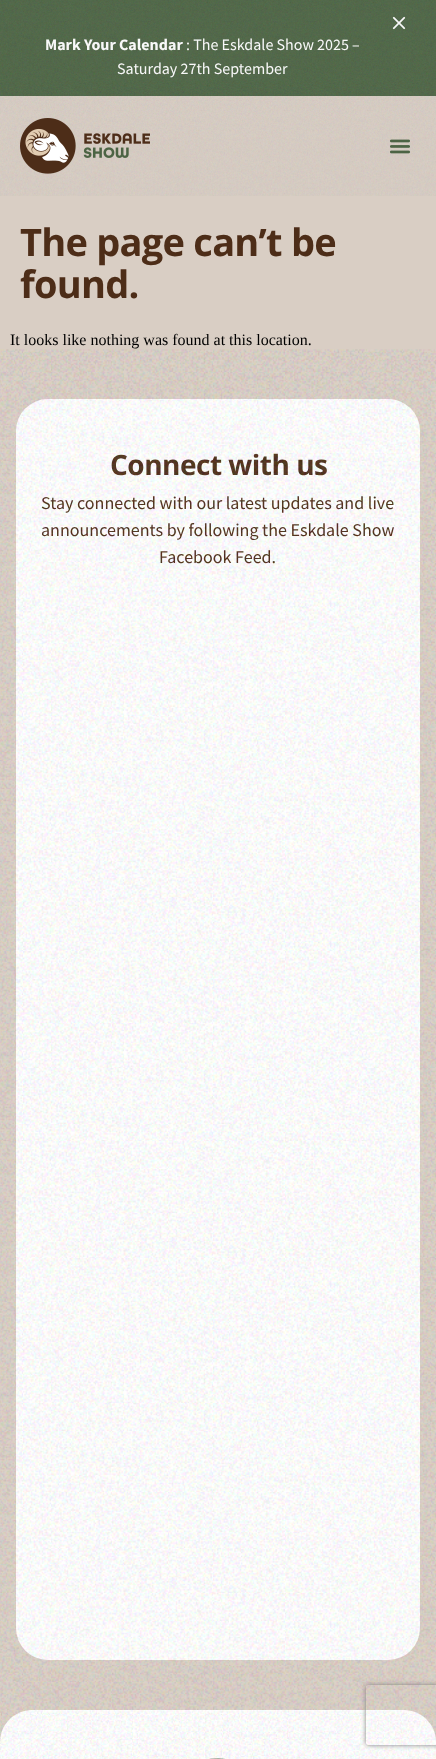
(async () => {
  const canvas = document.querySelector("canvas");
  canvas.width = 436;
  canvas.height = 1759;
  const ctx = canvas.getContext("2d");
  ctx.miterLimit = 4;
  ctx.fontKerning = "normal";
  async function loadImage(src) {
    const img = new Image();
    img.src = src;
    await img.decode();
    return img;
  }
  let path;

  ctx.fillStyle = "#d9cec4";
  ctx.fillRect(0, 0, 436, 1759);
  ctx.fillStyle = "#4c6444";
  ctx.fillRect(0, 0, 436, 96);
  ctx.drawImage(await loadImage("img/2.png"), 392, 16, 14, 14);
  ctx.fillStyle = "#ffffff";
  ctx.beginPath();
  ctx.roundRect(16, 399, 404, 1261, 32);
  ctx.fill();
  path = new Path2D("M32 1710H404C421.5 1710 436 1724.5 436 1742V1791H0V1742C0 1724.5 14.5 1710 32 1710Z");
  ctx.fill(path);
  ctx.drawImage(await loadImage("img/6.png"), 209, 1758, 16, 1);
  ctx.drawImage(await loadImage("img/7.png"), 0, 1710, 436, 49);
  ctx.font = "bold 16px Source Sans Pro";
  ctx.fillText("Mark Your Calendar", 45, 50);
  ctx.font = "16px Source Sans Pro";
  ctx.fillText(": The Eskdale Show 2025 –", 186, 50);
  ctx.fillText("Saturday 27th September", 117, 74);
  ctx.drawImage(await loadImage("img/1.png"), 0, 0, 436, 196);
  ctx.drawImage(await loadImage("img/3.png"), 20, 118, 130, 56);
  ctx.drawImage(await loadImage("img/4.png"), 390, 139, 20, 15);
  ctx.letterSpacing = "-0.75px";
  ctx.font = "bold 38px Open Sans";
  ctx.fillStyle = "#4d2d18";
  ctx.fillText("The page can’t be", 20, 256);
  ctx.fillText("found.", 20, 298);
  ctx.letterSpacing = "0px";
  ctx.font = "16px Liberation Serif";
  ctx.fillStyle = "#000000";
  ctx.fillText("It looks like nothing was found at this location.", 10, 345);
  ctx.letterSpacing = "-0.5px";
  ctx.font = "bold 28px Open Sans";
  ctx.fillStyle = "#4d2d18";
  ctx.fillText("Connect with us", 110, 475);
  ctx.letterSpacing = "0px";
  ctx.font = "18px Source Sans Pro";
  for (const [text, x, y] of [
    ["Stay connected with our latest updates and live", 41, 509],
    ["announcements by following the Eskdale Show", 41, 536],
    ["Facebook Feed.", 159, 563],
  ]) {
    ctx.fillText(text, x, y);
  }
  ctx.drawImage(await loadImage("img/5.png"), 0, 349, 436, 1361);
  ctx.save();
  path = new Path2D("M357 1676H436V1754H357ZM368 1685H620C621 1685 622 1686 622 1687V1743C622 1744 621 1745 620 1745H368C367 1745 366 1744 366 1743V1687C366 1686 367 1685 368 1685Z");
  ctx.clip(path, "evenodd");
  ctx.fillStyle = "#808080";
  ctx.filter = "blur(2.5px)";
  ctx.beginPath();
  ctx.roundRect(366, 1685, 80, 60, 2);
  ctx.fill();
  ctx.filter = "none";
  ctx.restore();
})();
